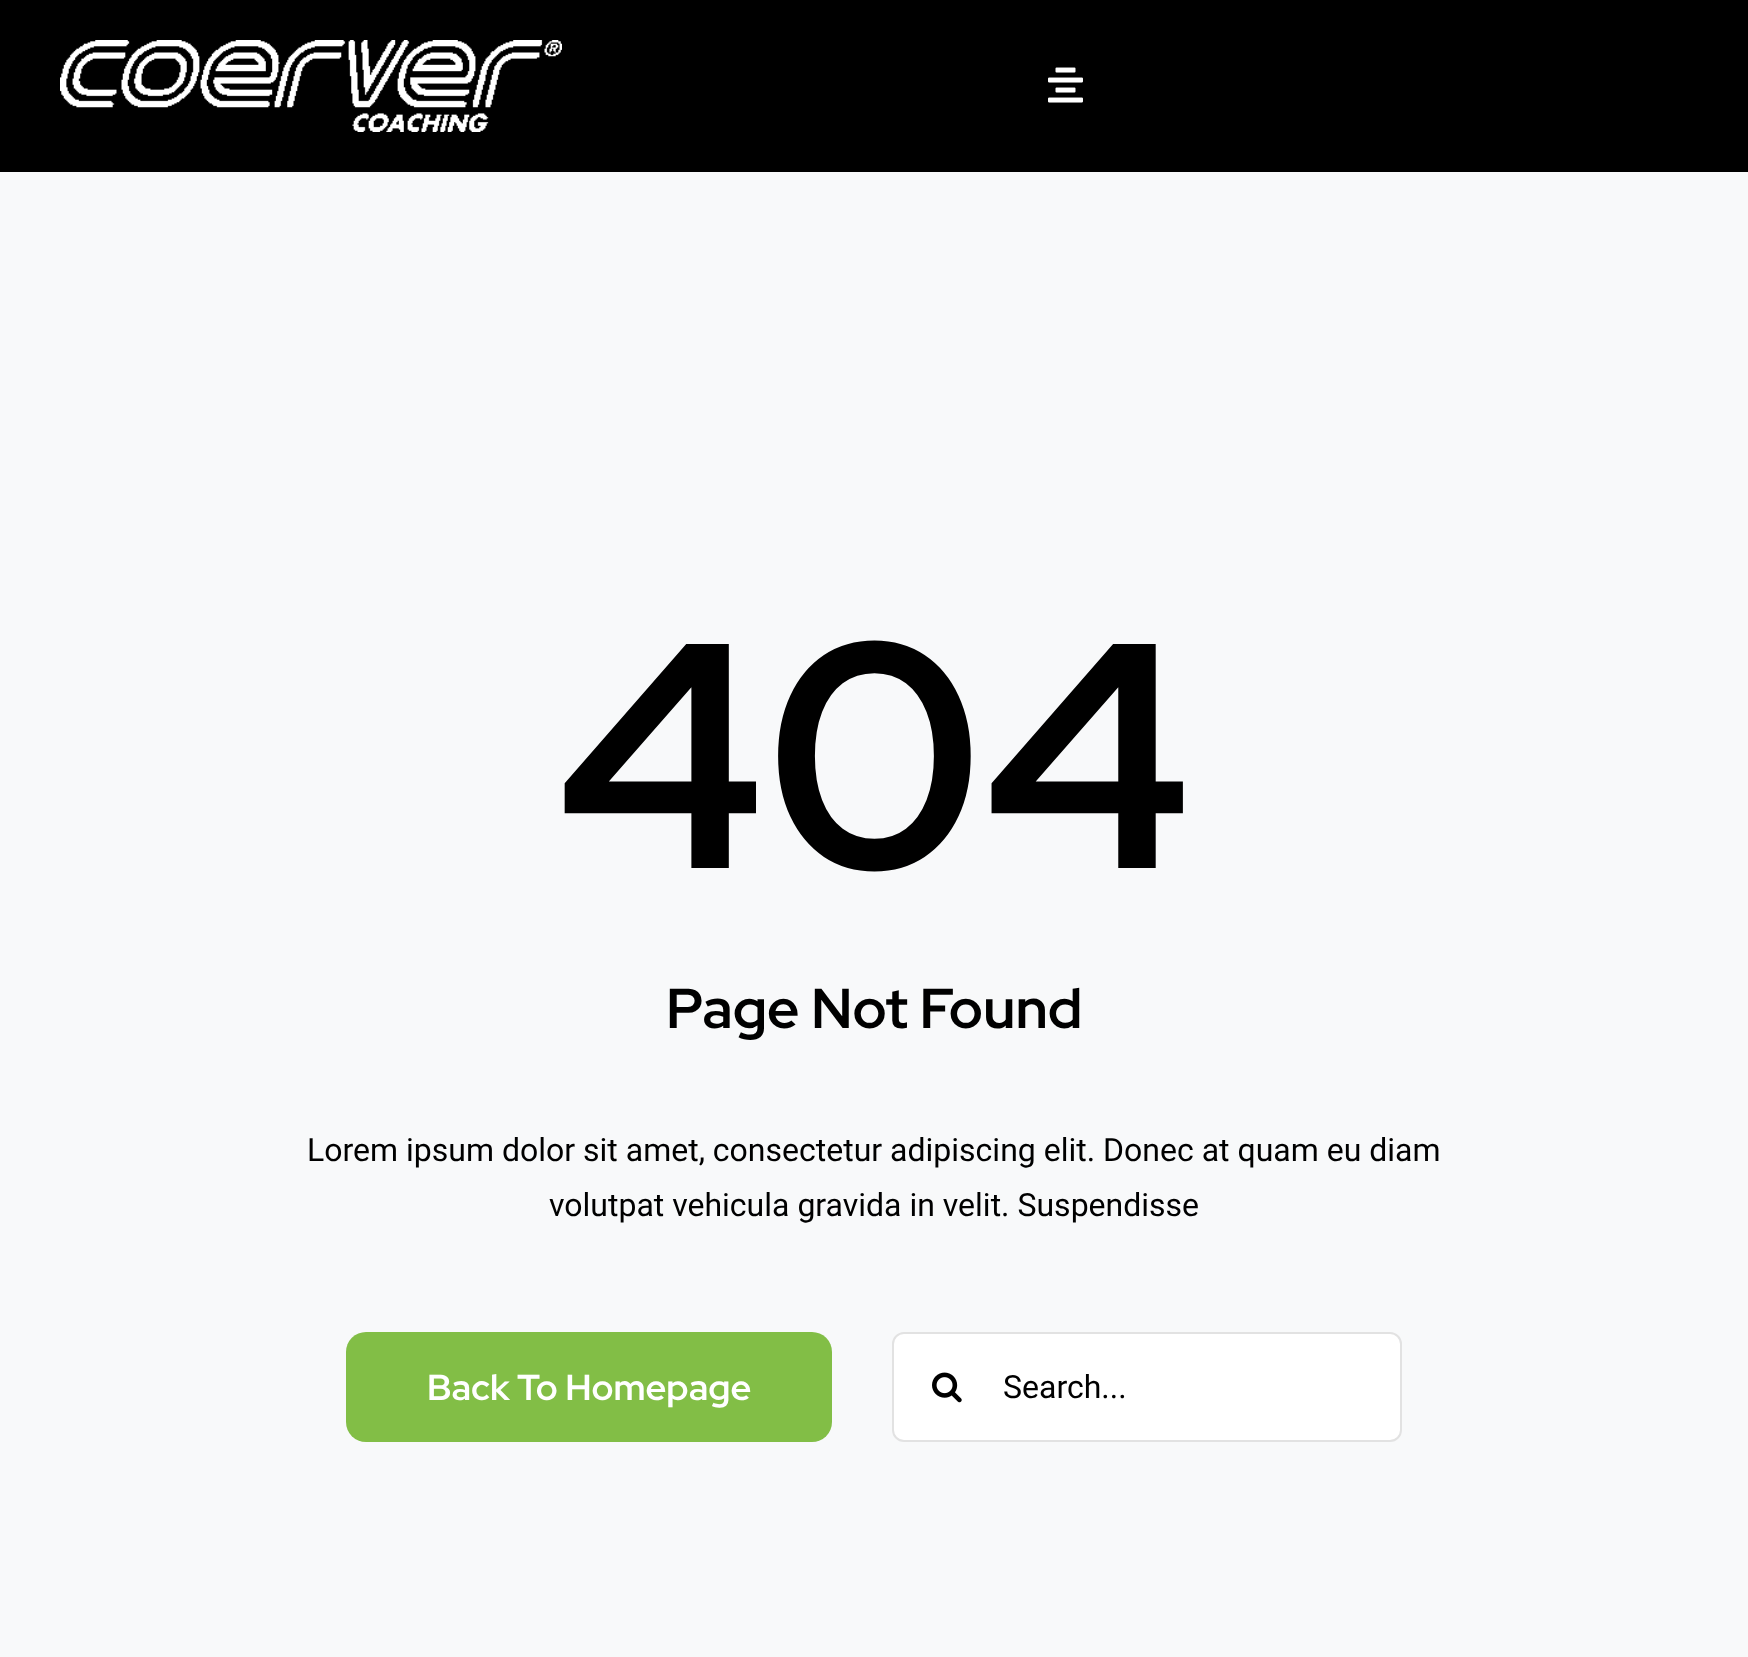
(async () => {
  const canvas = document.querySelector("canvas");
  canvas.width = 1748;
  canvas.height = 1657;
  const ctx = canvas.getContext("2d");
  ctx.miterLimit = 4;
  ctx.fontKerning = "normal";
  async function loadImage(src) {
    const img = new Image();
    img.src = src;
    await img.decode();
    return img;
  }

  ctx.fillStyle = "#000000";
  ctx.fillRect(0, 0, 1748, 1657);
  ctx.drawImage(await loadImage("img/1.png"), 60, 40, 502, 92);
  ctx.drawImage(await loadImage("img/2.png"), 1048, 67, 35, 36);
  ctx.fillStyle = "#f8f9fa";
  ctx.fillRect(0, 172, 1748, 1485);
  ctx.fillStyle = "#82be46";
  ctx.beginPath();
  ctx.roundRect(346, 1332, 486, 110, 20);
  ctx.fill();
  ctx.fillStyle = "#ffffff";
  ctx.beginPath();
  ctx.roundRect(893, 1333, 508, 108, 11);
  ctx.fill();
  ctx.strokeStyle = "#e2e2e2";
  ctx.lineWidth = 2;
  ctx.stroke();
  ctx.drawImage(await loadImage("img/3.png"), 932, 1372, 30, 31);
  ctx.font = "bold 320px Red Hat Display";
  ctx.fillStyle = "#000000";
  ctx.fillText("404", 556, 868);
  ctx.font = "bold 56px Red Hat Display";
  ctx.fillText("Page Not Found", 666, 1028);
  ctx.font = "32px Roboto";
  ctx.fillText("Lorem ipsum dolor sit amet, consectetur adipiscing elit. Donec at quam eu diam", 307, 1161);
  ctx.fillText("volutpat vehicula gravida in velit. Suspendisse", 549, 1216);
  ctx.font = "bold 36px Red Hat Display";
  ctx.fillStyle = "#ffffff";
  ctx.fillText("Back To Homepage", 427, 1400);
  ctx.font = "32px Roboto";
  ctx.fillStyle = "#000000";
  ctx.fillText("Search...", 1003, 1398);
})();
